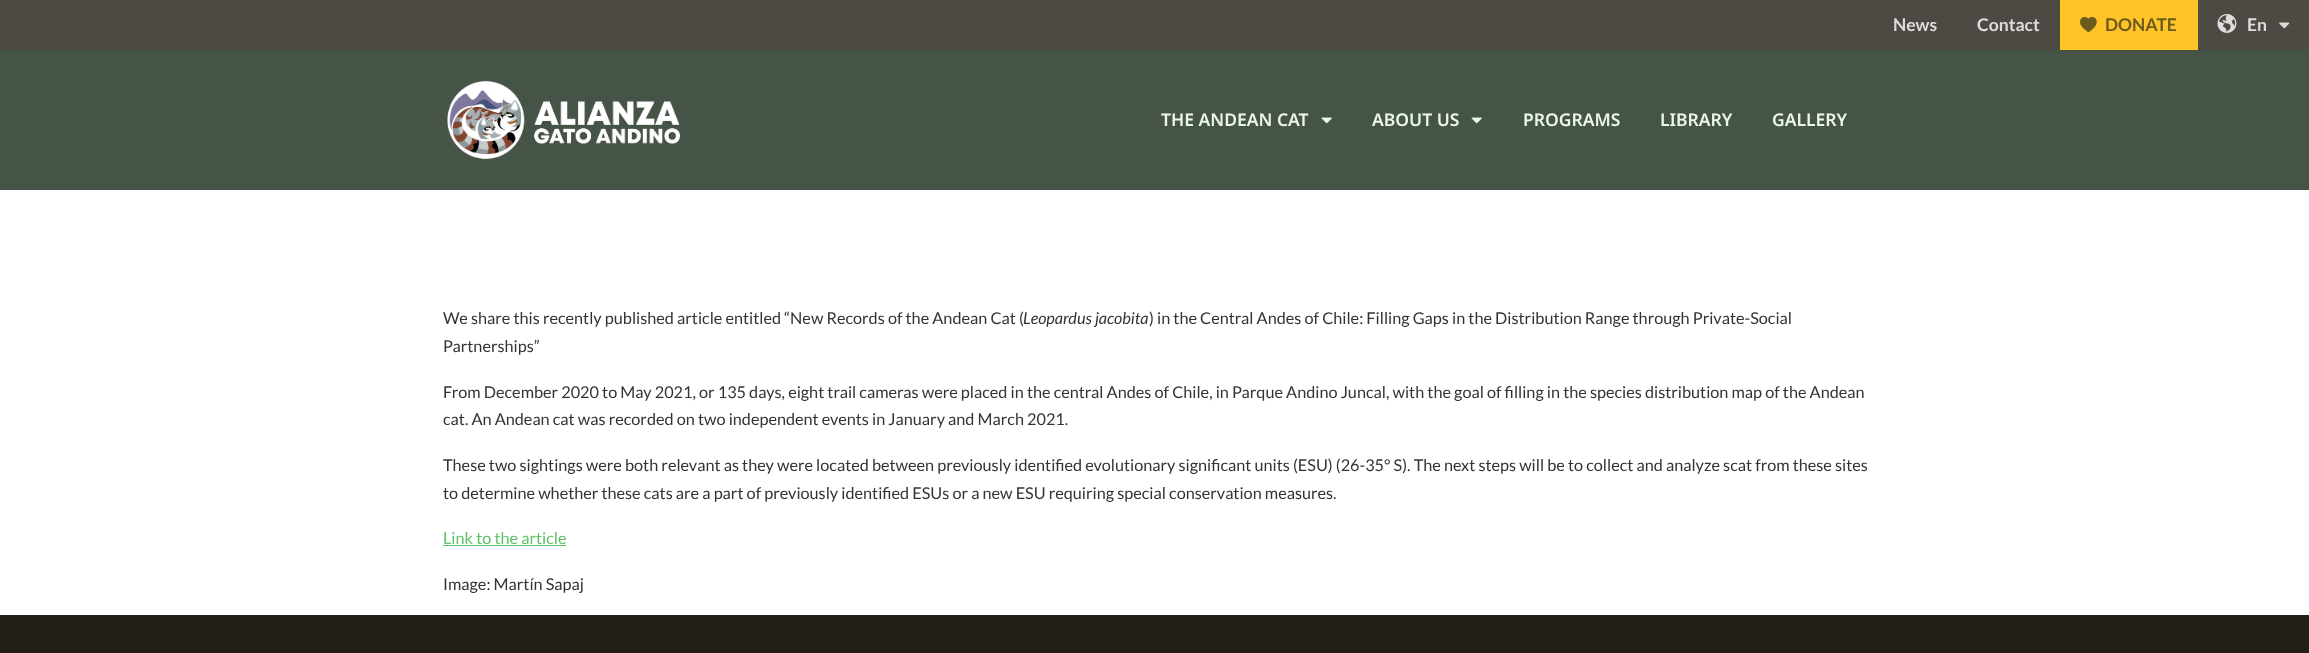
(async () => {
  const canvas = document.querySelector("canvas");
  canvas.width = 2309;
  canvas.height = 653;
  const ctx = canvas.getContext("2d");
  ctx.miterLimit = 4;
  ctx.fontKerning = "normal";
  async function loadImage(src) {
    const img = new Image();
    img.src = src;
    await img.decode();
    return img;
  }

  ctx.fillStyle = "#ffffff";
  ctx.fillRect(0, 0, 2309, 653);
  ctx.fillStyle = "#4e4942";
  ctx.fillRect(0, 0, 2309, 50);
  ctx.fillStyle = "#fec428";
  ctx.fillRect(2060, 0, 138, 50);
  ctx.drawImage(await loadImage("img/1.png"), 2080, 17, 17, 16);
  ctx.drawImage(await loadImage("img/2.png"), 2217, 14, 20, 19);
  ctx.drawImage(await loadImage("img/3.png"), 2279, 22, 11, 7);
  ctx.fillStyle = "#465347";
  ctx.fillRect(0, 50, 2309, 140);
  ctx.drawImage(await loadImage("img/4.png"), 447, 81, 233, 78);
  ctx.drawImage(await loadImage("img/5.png"), 1321, 117, 11, 7);
  ctx.drawImage(await loadImage("img/5.png"), 1471, 117, 11, 7);
  ctx.fillStyle = "#5dc269";
  ctx.fillRect(443, 545, 123, 1);
  ctx.fillStyle = "#231e18";
  ctx.fillRect(0, 615, 2309, 38);
  ctx.font = "bold 17.5px Lato";
  ctx.fillStyle = "#dddddd";
  ctx.fillText("News", 1893, 31);
  ctx.fillText("Contact", 1977, 31);
  ctx.fillStyle = "#6d5b1c";
  ctx.fillText("DONATE", 2105, 31);
  ctx.fillStyle = "#dddddd";
  ctx.fillText("En", 2247, 31);
  ctx.font = "600 17.5px Noto Sans";
  ctx.fillStyle = "#e9f7e8";
  for (const [text, x, y] of [
    ["THE ANDEAN CAT", 1161, 126],
    ["ABOUT US", 1372, 126],
    ["PROGRAMS", 1523, 126],
    ["LIBRARY", 1660, 126],
    ["GALLERY", 1772, 126],
  ]) {
    ctx.fillText(text, x, y);
  }
  ctx.font = "16.25px Lato";
  ctx.fillStyle = "#333333";
  ctx.fillText("We share this recently published article entitled “New Records of the Andean Cat (", 443, 324);
  ctx.font = "italic 16.25px Lato";
  ctx.fillText("Leopardus jacobita", 1023, 324);
  ctx.font = "16.25px Lato";
  for (const [text, x, y] of [
    [") in the Central Andes of Chile: Filling Gaps in the Distribution Range through Private-Social", 1149, 324],
    ["Partnerships”", 443, 352],
    ["From December 2020 to May 2021, or 135 days, eight trail cameras were placed in the central Andes of Chile, in Parque Andino Juncal, with the goal of filling in the species distribution map of the Andean", 443, 398],
    ["cat. An Andean cat was recorded on two independent events in January and March 2021.", 443, 425],
    ["These two sightings were both relevant as they were located between previously identified evolutionary significant units (ESU) (26-35° S). The next steps will be to collect and analyze scat from these sites", 443, 471],
    ["to determine whether these cats are a part of previously identified ESUs or a new ESU requiring special conservation measures.", 443, 499],
  ]) {
    ctx.fillText(text, x, y);
  }
  ctx.fillStyle = "#5dc269";
  ctx.fillText("Link to the article", 443, 544);
  ctx.fillStyle = "#333333";
  ctx.fillText("Image: Martín Sapaj", 443, 590);
})();
